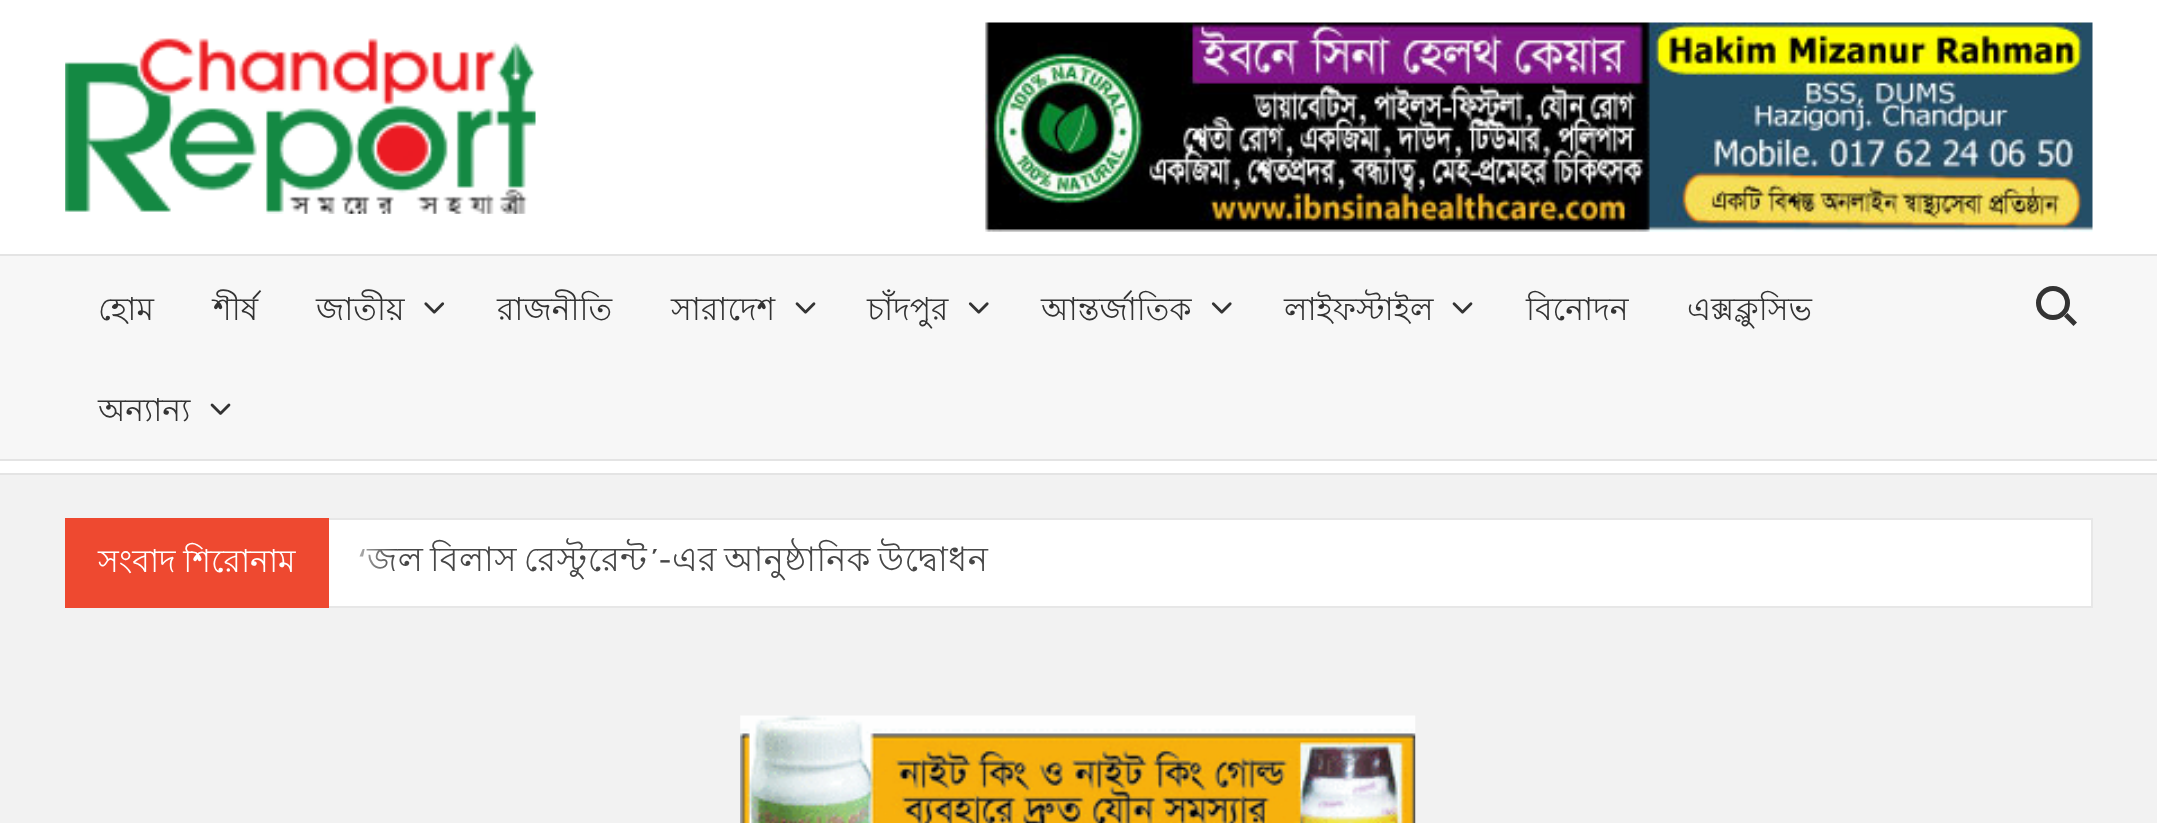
(async () => {
  const canvas = document.querySelector("canvas");
  canvas.width = 2157;
  canvas.height = 823;
  const ctx = canvas.getContext("2d");
  ctx.miterLimit = 4;
  ctx.fontKerning = "normal";
  async function loadImage(src) {
    const img = new Image();
    img.src = src;
    await img.decode();
    return img;
  }
  let gradient, path;

  ctx.fillStyle = "#f2f2f2";
  ctx.fillRect(0, 0, 2157, 823);
  ctx.fillStyle = "#ffffff";
  ctx.fillRect(0, 0, 2157, 254);
  ctx.drawImage(await loadImage("img/1.png"), 65, 38, 471, 176);
  ctx.drawImage(await loadImage("img/2.png"), 983, 22, 1110, 210);
  ctx.fillStyle = "#e4e4e4";
  path = new Path2D("M0 472V475H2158V257V472Z");
  ctx.fill(path);
  for (const [x, y, w, h, color] of [
    [0, 256, 2157, 203, "#f7f7f7"],
    [0, 461, 2157, 12, "#ffffff"],
    [0, 254, 2157, 2, "#e4e4e4"],
    [0, 459, 2157, 2, "#e4e4e4"],
  ]) {
    ctx.fillStyle = color;
    ctx.fillRect(x, y, w, h);
  }
  ctx.drawImage(await loadImage("img/3.png"), 424, 302, 21, 12);
  ctx.drawImage(await loadImage("img/4.png"), 795, 302, 21, 12);
  ctx.drawImage(await loadImage("img/5.png"), 968, 302, 21, 12);
  ctx.drawImage(await loadImage("img/5.png"), 1211, 302, 21, 12);
  ctx.drawImage(await loadImage("img/4.png"), 1452, 302, 21, 12);
  ctx.drawImage(await loadImage("img/6.png"), 210, 403, 21, 12);
  ctx.beginPath();
  ctx.arc(2053, 303, 14.5, 0, Math.PI * 2);
  ctx.strokeStyle = "#333333";
  ctx.lineWidth = 5;
  ctx.stroke();
  ctx.fillStyle = "#333333";
  path = new Path2D("M2067.5 313L2077 322.5L2073.5 326L2064 316.5Z");
  ctx.fill(path);
  ctx.fillStyle = "#ffffff";
  ctx.fillRect(329, 520, 1762, 86);
  ctx.strokeStyle = "#e7e7e7";
  ctx.lineWidth = 2;
  ctx.strokeRect(66, 519, 2026, 88);
  ctx.fillStyle = "#ee4930";
  ctx.fillRect(65, 518, 264, 90);
  ctx.drawImage(await loadImage("img/7.png"), 740, 715, 676, 108);
  ctx.font = "31.5px Lohit Bengali";
  ctx.fillStyle = "#333333";
  for (const [text, x, y] of [
    ["হোম", 98, 320],
    ["শীর্ষ", 213, 320],
    ["জাতীয়", 316, 320],
    ["রাজনীতি", 497, 320],
    ["সারাদেশ", 671, 320],
    ["চাঁদপুর", 867, 320],
    ["আন্তর্জাতিক", 1041, 320],
    ["লাইফস্টাইল", 1284, 320],
    ["বিনোদন", 1526, 320],
    ["এক্সক্লুসিভ", 1687, 320],
    ["অন্যান্য", 98, 421],
  ]) {
    ctx.fillText(text, x, y);
  }
  ctx.wordSpacing = "-1px";
  ctx.fillStyle = "#ffffff";
  ctx.fillText("সংবাদ শিরোনাম", 98, 572);
  ctx.letterSpacing = "0.45px";
  ctx.wordSpacing = "0px";
  ctx.font = "33.75px Play";
  ctx.fillStyle = "#474747";
  ctx.fillText("‘", 358, 571);
  ctx.wordSpacing = "-3px";
  ctx.font = "33.75px Lohit Bengali";
  ctx.fillText("জল বিলাস রেস্টুরেন্ট", 367, 571);
  gradient = ctx.createLinearGradient(329, 563, 396, 563);
  gradient.addColorStop(0, "#ffffff");
  gradient.addColorStop(1, "rgba(255, 255, 255, 0)");
  ctx.fillStyle = gradient;
  ctx.fillRect(359, 549, 36, 22);
  ctx.wordSpacing = "0px";
  ctx.font = "33.75px Play";
  ctx.fillStyle = "#474747";
  ctx.fillText("’-", 651, 571);
  ctx.wordSpacing = "-3px";
  ctx.font = "33.75px Lohit Bengali";
  ctx.fillText("এর আনুষ্ঠানিক উদ্বোধন", 672, 571);
})();
